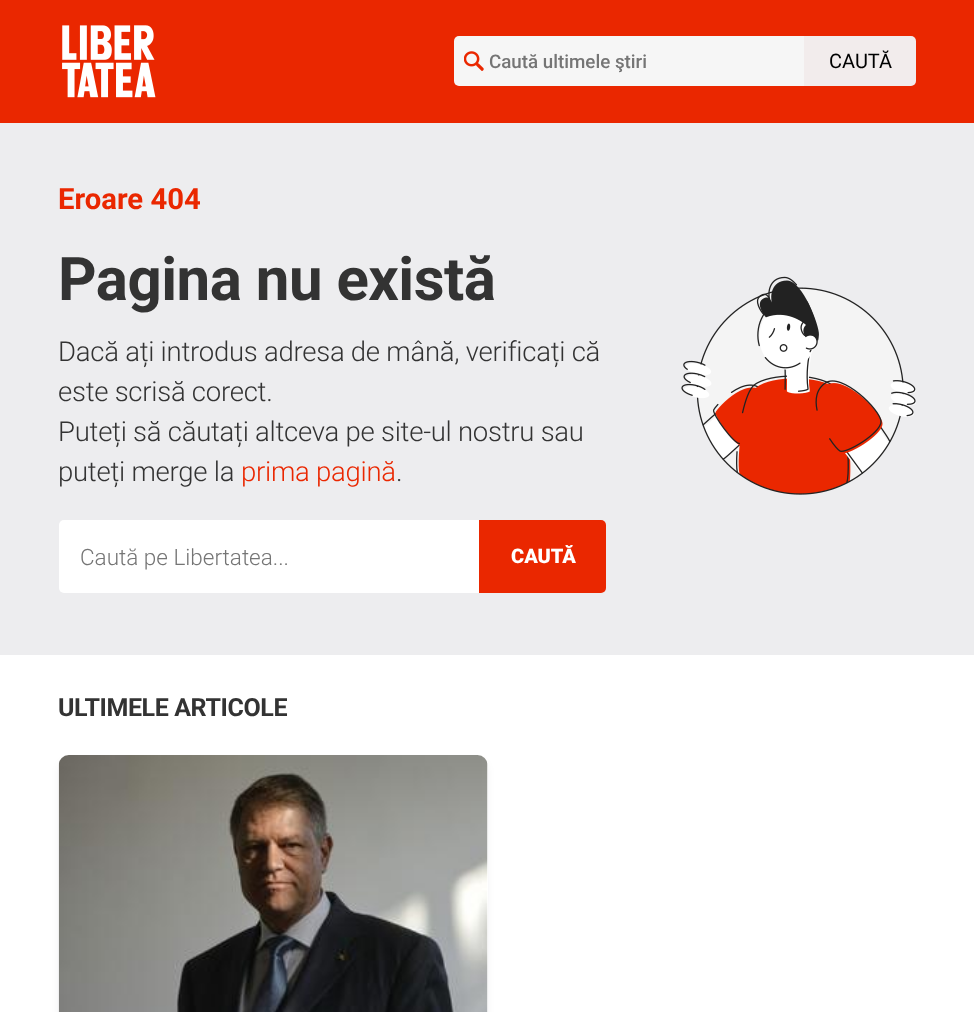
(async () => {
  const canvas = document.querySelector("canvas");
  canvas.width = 974;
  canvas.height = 1012;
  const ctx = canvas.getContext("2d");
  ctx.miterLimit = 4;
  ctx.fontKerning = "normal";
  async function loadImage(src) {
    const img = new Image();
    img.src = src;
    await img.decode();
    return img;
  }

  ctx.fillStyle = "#ffffff";
  ctx.fillRect(0, 0, 974, 1012);
  ctx.fillStyle = "#ea2700";
  ctx.fillRect(0, 0, 974, 123);
  ctx.drawImage(await loadImage("img/1.png"), 62, 25, 94, 73);
  ctx.fillStyle = "#f6f6f6";
  ctx.beginPath();
  ctx.roundRect(454, 36, 350, 50, [5, 0, 0, 5]);
  ctx.fill();
  ctx.drawImage(await loadImage("img/2.png"), 464, 51, 20, 20);
  ctx.fillStyle = "#f2ecec";
  ctx.beginPath();
  ctx.roundRect(804, 36, 112, 50, [0, 5, 5, 0]);
  ctx.fill();
  ctx.fillStyle = "#ededef";
  ctx.fillRect(0, 123, 974, 532);
  ctx.fillStyle = "#ffffff";
  ctx.beginPath();
  ctx.roundRect(59, 520, 420, 73, [5, 0, 0, 5]);
  ctx.fill();
  ctx.fillStyle = "#ea2700";
  ctx.beginPath();
  ctx.roundRect(479, 520, 127, 73, [0, 5, 5, 0]);
  ctx.fill();
  ctx.drawImage(await loadImage("img/3.png"), 681, 276, 235, 219);
  ctx.fillStyle = "rgba(16, 24, 40, 0.1)";
  ctx.filter = "blur(5px)";
  ctx.beginPath();
  ctx.roundRect(61, 763, 424, 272, 8);
  ctx.fill();
  ctx.filter = "none";
  ctx.fillStyle = "#ffffff";
  ctx.beginPath();
  ctx.roundRect(59, 755, 429, 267, 10);
  ctx.fill();
  ctx.drawImage(await loadImage("img/4.png"), 58, 755, 430, 257);
  ctx.font = "500 18.75px Roboto";
  ctx.fillStyle = "#757575";
  ctx.fillText("Caută ultimele ştiri", 489, 68);
  ctx.font = "20px Roboto";
  ctx.fillStyle = "#000000";
  ctx.fillText("CAUTĂ", 829, 68);
  ctx.font = "bold 29.25px Roboto";
  ctx.fillStyle = "#ea2700";
  ctx.fillText("Eroare 404", 58, 209);
  ctx.letterSpacing = "-0.5px";
  ctx.font = "bold 60px Roboto";
  ctx.fillStyle = "#333333";
  ctx.fillText("Pagina nu există", 58, 300);
  ctx.letterSpacing = "-0.25px";
  ctx.font = "300 27.5px Roboto";
  for (const [text, x, y] of [
    ["Dacă ați introdus adresa de mână, verificați că", 58, 361],
    ["este scrisă corect.", 58, 401],
    ["Puteți să căutați altceva pe site-ul nostru sau", 58, 441],
    ["puteți merge la", 58, 481],
  ]) {
    ctx.fillText(text, x, y);
  }
  ctx.fillStyle = "#ea2700";
  ctx.fillText("prima pagină", 241, 481);
  ctx.fillStyle = "#333333";
  ctx.fillText(".", 396, 481);
  ctx.letterSpacing = "0px";
  ctx.font = "300 22.5px Roboto";
  ctx.fillStyle = "#757575";
  ctx.fillText("Caută pe Libertatea...", 80, 565);
  ctx.font = "900 20px Roboto";
  ctx.fillStyle = "#ffffff";
  ctx.fillText("CAUTĂ", 511, 563);
  ctx.letterSpacing = "-0.4px";
  ctx.font = "bold 25px Roboto";
  ctx.fillStyle = "#333333";
  ctx.fillText("ULTIMELE ARTICOLE", 58, 716);
})();
